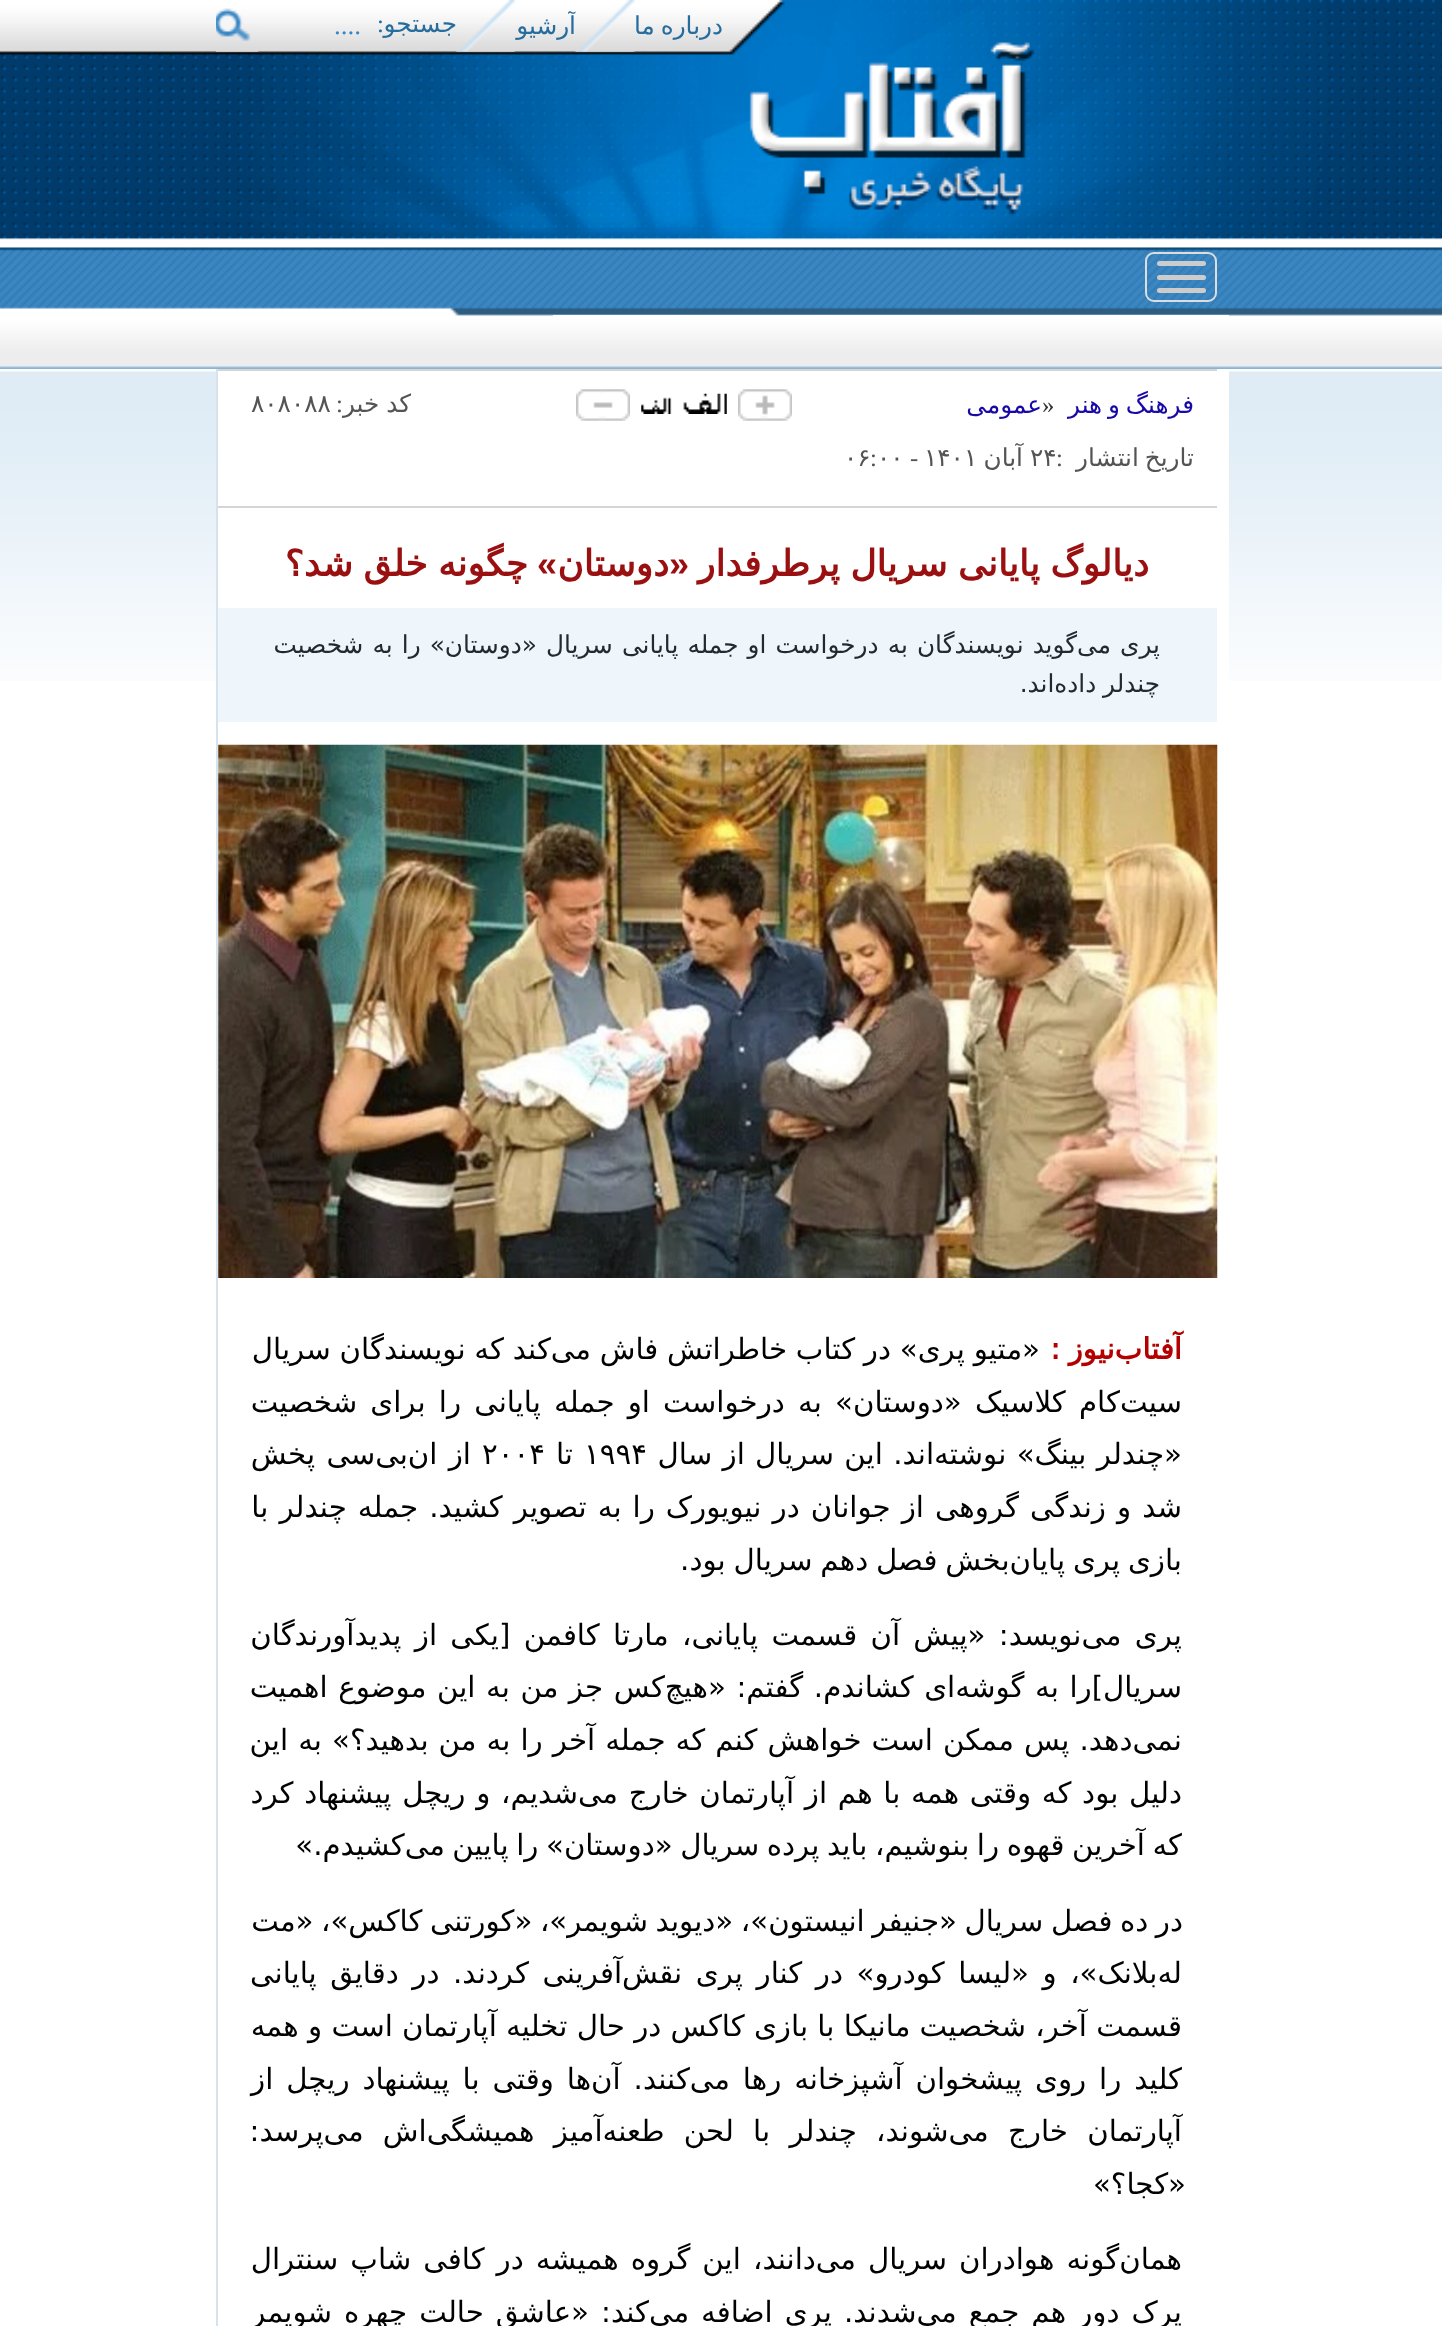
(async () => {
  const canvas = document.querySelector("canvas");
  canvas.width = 1442;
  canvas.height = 2326;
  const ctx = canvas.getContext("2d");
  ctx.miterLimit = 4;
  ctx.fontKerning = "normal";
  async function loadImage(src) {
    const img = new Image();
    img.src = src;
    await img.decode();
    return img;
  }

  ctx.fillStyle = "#ffffff";
  ctx.fillRect(0, 0, 1442, 2326);
  ctx.drawImage(await loadImage("img/1.png"), 0, 0, 1442, 369);
  ctx.drawImage(await loadImage("img/4.png"), 216, 8, 43, 44);
  ctx.beginPath();
  ctx.roundRect(1146, 253, 70, 48, 8);
  ctx.strokeStyle = "#dddddd";
  ctx.lineWidth = 2;
  ctx.stroke();
  ctx.fillStyle = "#cccccc";
  ctx.beginPath();
  ctx.roundRect(1157, 261, 49, 5, 2.5);
  ctx.fill();
  ctx.beginPath();
  ctx.roundRect(1157, 275, 49, 5, 2.5);
  ctx.fill();
  ctx.beginPath();
  ctx.roundRect(1157, 288, 49, 5, 2.5);
  ctx.fill();
  ctx.drawImage(await loadImage("img/5.png"), 1172, 315, 56, 1);
  ctx.fillStyle = "#f3f5f8";
  ctx.fillRect(1228, 315, 1, 1);
  ctx.drawImage(await loadImage("img/6.png"), 553, 315, 620, 43);
  ctx.drawImage(await loadImage("img/7.png"), 0, 371, 1442, 310);
  for (const [x, y, w, h, color] of [
    [218, 371, 1011, 310, "#ffffff"],
    [216, 369, 2, 1957, "#d6e3ec"],
    [218, 369, 999, 2, "#d5d5d5"],
    [218, 506, 999, 2, "#d5d5d5"],
  ]) {
    ctx.fillStyle = color;
    ctx.fillRect(x, y, w, h);
  }
  ctx.drawImage(await loadImage("img/8.png"), 738, 389, 54, 32);
  ctx.drawImage(await loadImage("img/9.png"), 641, 393, 86, 21);
  ctx.drawImage(await loadImage("img/10.png"), 576, 389, 54, 32);
  ctx.fillStyle = "#eef5fb";
  ctx.fillRect(218, 608, 999, 114);
  ctx.drawImage(await loadImage("img/11.png"), 218, 744, 1000, 534);
  ctx.wordSpacing = "-2px";
  ctx.direction = "rtl";
  ctx.font = "24.75px DejaVu Sans";
  ctx.fillStyle = "#266c9d";
  ctx.fillText("درباره ما", 723, 34);
  ctx.wordSpacing = "0px";
  ctx.fillText("آرشیو", 576, 34);
  ctx.drawImage(await loadImage("img/2.png"), 575, 0, 60, 52);
  ctx.fillText("جستجو", 457, 32);
  ctx.drawImage(await loadImage("img/3.png"), 455, 0, 61, 52);
  ctx.font = "24.75px Liberation Serif";
  ctx.fillText(":", 384, 32);
  ctx.direction = "ltr";
  ctx.font = "27px Liberation Serif";
  ctx.fillStyle = "#3586c7";
  ctx.fillText("....", 334, 34);
  ctx.wordSpacing = "-2px";
  ctx.direction = "rtl";
  ctx.font = "24.75px DejaVu Sans";
  ctx.fillStyle = "#1809a6";
  ctx.fillText("فرهنگ و هنر", 1194, 413);
  ctx.wordSpacing = "0px";
  ctx.direction = "ltr";
  ctx.font = "24.75px Liberation Serif";
  ctx.fillStyle = "#333333";
  ctx.fillText("»", 1042, 413);
  ctx.direction = "rtl";
  ctx.font = "24.75px DejaVu Sans";
  ctx.fillStyle = "#1809a6";
  ctx.fillText("عمومی", 1042, 413);
  ctx.wordSpacing = "-1px";
  ctx.fillStyle = "#545454";
  ctx.fillText("کد خبر", 411, 412);
  ctx.wordSpacing = "0px";
  ctx.font = "24.75px Liberation Serif";
  ctx.fillText(":", 343, 412);
  ctx.direction = "ltr";
  ctx.font = "24.75px DejaVu Sans";
  ctx.fillText("۸۰۸۰۸۸", 251, 412);
  ctx.wordSpacing = "-2px";
  ctx.direction = "rtl";
  ctx.fillText("تاریخ انتشار", 1194, 466);
  ctx.wordSpacing = "0px";
  ctx.direction = "ltr";
  ctx.font = "24.75px Liberation Serif";
  ctx.fillText(":", 1056, 466);
  ctx.font = "24.75px DejaVu Sans";
  ctx.fillText("۲۴", 1030, 466);
  ctx.direction = "rtl";
  ctx.fillText("آبان", 1023, 466);
  ctx.direction = "ltr";
  ctx.fillText("۱۴۰۱", 924, 466);
  ctx.font = "24.75px Liberation Serif";
  ctx.fillText("-", 910, 466);
  ctx.font = "24.75px DejaVu Sans";
  ctx.fillText("۰۰", 877, 466);
  ctx.font = "24.75px Liberation Serif";
  ctx.fillText(":", 870, 466);
  ctx.font = "24.75px DejaVu Sans";
  ctx.fillText("۰۶", 844, 466);
  ctx.wordSpacing = "-1px";
  ctx.direction = "rtl";
  ctx.font = "bold 36px DejaVu Sans";
  ctx.fillStyle = "#9a1010";
  ctx.fillText("دیالوگ پایانی سریال پرطرفدار", 1149, 576);
  ctx.wordSpacing = "0px";
  ctx.font = "bold 36px Liberation Sans";
  ctx.fillText("«", 689, 576);
  ctx.font = "bold 36px DejaVu Sans";
  ctx.fillText("دوستان", 669, 576);
  ctx.font = "bold 36px Liberation Sans";
  ctx.fillText("»", 557, 576);
  ctx.wordSpacing = "-1px";
  ctx.font = "bold 36px DejaVu Sans";
  ctx.fillText("چگونه خلق شد؟", 528, 576);
  ctx.wordSpacing = "1.25px";
  ctx.font = "24.75px DejaVu Sans";
  ctx.fillStyle = "#24292d";
  ctx.fillText("پری می‌گوید نویسندگان به درخواست او جمله پایانی سریال «دوستان» را به شخصیت", 1160, 653);
  ctx.wordSpacing = "-1px";
  ctx.fillText("چندلر داده‌اند.", 1160, 692);
  ctx.font = "bold 29.25px DejaVu Sans";
  ctx.fillStyle = "#b30000";
  ctx.fillText("آفتاب‌‌نیوز :", 1182, 1359);
  ctx.wordSpacing = "-0.5px";
  ctx.font = "29.25px DejaVu Sans";
  ctx.fillStyle = "#010101";
  ctx.fillText("«متیو پری» در کتاب خاطراتش فاش می‌کند که نویسندگان سریال", 1040, 1359);
  ctx.wordSpacing = "3.9px";
  ctx.fillText("سیت‌کام کلاسیک «دوستان» به درخواست او جمله پایانی را برای شخصیت", 1182, 1412);
  ctx.wordSpacing = "1px";
  ctx.fillText("«چندلر بینگ» نوشته‌اند. این سریال از سال", 1182, 1464);
  ctx.wordSpacing = "0px";
  ctx.direction = "ltr";
  ctx.fillText("۱۹۹۴", 584, 1464);
  ctx.direction = "rtl";
  ctx.fillText("تا", 573, 1464);
  ctx.direction = "ltr";
  ctx.fillText("۲۰۰۴", 482, 1464);
  ctx.wordSpacing = "2px";
  ctx.direction = "rtl";
  ctx.fillText("از ان‌بی‌سی پخش", 471, 1464);
  ctx.wordSpacing = "1.75px";
  ctx.fillText("شد و زندگی گروهی از جوانان در نیویورک را به تصویر کشید. جمله چندلر با", 1182, 1517);
  ctx.wordSpacing = "-1.5px";
  ctx.fillText("بازی پری پایان‌بخش فصل دهم سریال بود.", 1182, 1570);
  ctx.wordSpacing = "4px";
  ctx.fillText("پری می‌نویسد: «پیش آن قسمت پایانی، مارتا کافمن [یکی از پدیدآورندگان", 1182, 1645);
  ctx.wordSpacing = "1.25px";
  ctx.fillText("سریال]را به گوشه‌ای کشاندم. گفتم: «هیچ‌کس جز من به این موضوع اهمیت", 1182, 1697);
  ctx.wordSpacing = "0.75px";
  ctx.fillText("نمی‌دهد. پس ممکن است خواهش کنم که جمله آخر را به من بدهید؟» به این", 1182, 1750);
  ctx.wordSpacing = "1.4px";
  ctx.fillText("دلیل بود که وقتی همه با هم از آپارتمان خارج می‌شدیم، و ریچل پیشنهاد کرد", 1182, 1803);
  ctx.wordSpacing = "-1.75px";
  ctx.fillText("که آخرین قهوه را بنوشیم، باید پرده سریال «دوستان» را پایین می‌کشیدم.»", 1182, 1855);
  ctx.fillText("در ده فصل سریال «جنیفر انیستون»، «دیوید شویمر»، «کورتنی کاکس»، «مت", 1183, 1931);
  ctx.wordSpacing = "4.25px";
  ctx.fillText("له‌بلانک»، و «لیسا کودرو» در کنار پری نقش‌آفرینی کردند. در دقایق پایانی", 1182, 1983);
  ctx.wordSpacing = "0px";
  ctx.fillText("قسمت آخر، شخصیت مانیکا با بازی کاکس در حال تخلیه آپارتمان است و همه", 1182, 2036);
  ctx.wordSpacing = "3.6px";
  ctx.fillText("کلید را روی پیشخوان آشپزخانه رها می‌کنند. آن‌ها وقتی با پیشنهاد ریچل از", 1182, 2089);
  ctx.wordSpacing = "10px";
  ctx.fillText("آپارتمان خارج می‌شوند، چندلر با لحن طعنه‌آمیز همیشگی‌اش می‌پرسد:", 1182, 2141);
  ctx.wordSpacing = "0px";
  ctx.fillText("«کجا؟»", 1186, 2194);
  ctx.wordSpacing = "2.75px";
  ctx.fillText("همان‌گونه هوادران سریال می‌دانند، این گروه همیشه در کافی شاپ سنترال", 1182, 2269);
  ctx.fillText("پرک دور هم جمع می‌شدند. پری اضافه می‌کند: «عاشق حالت چهره شویمر", 1182, 2322);
})();
